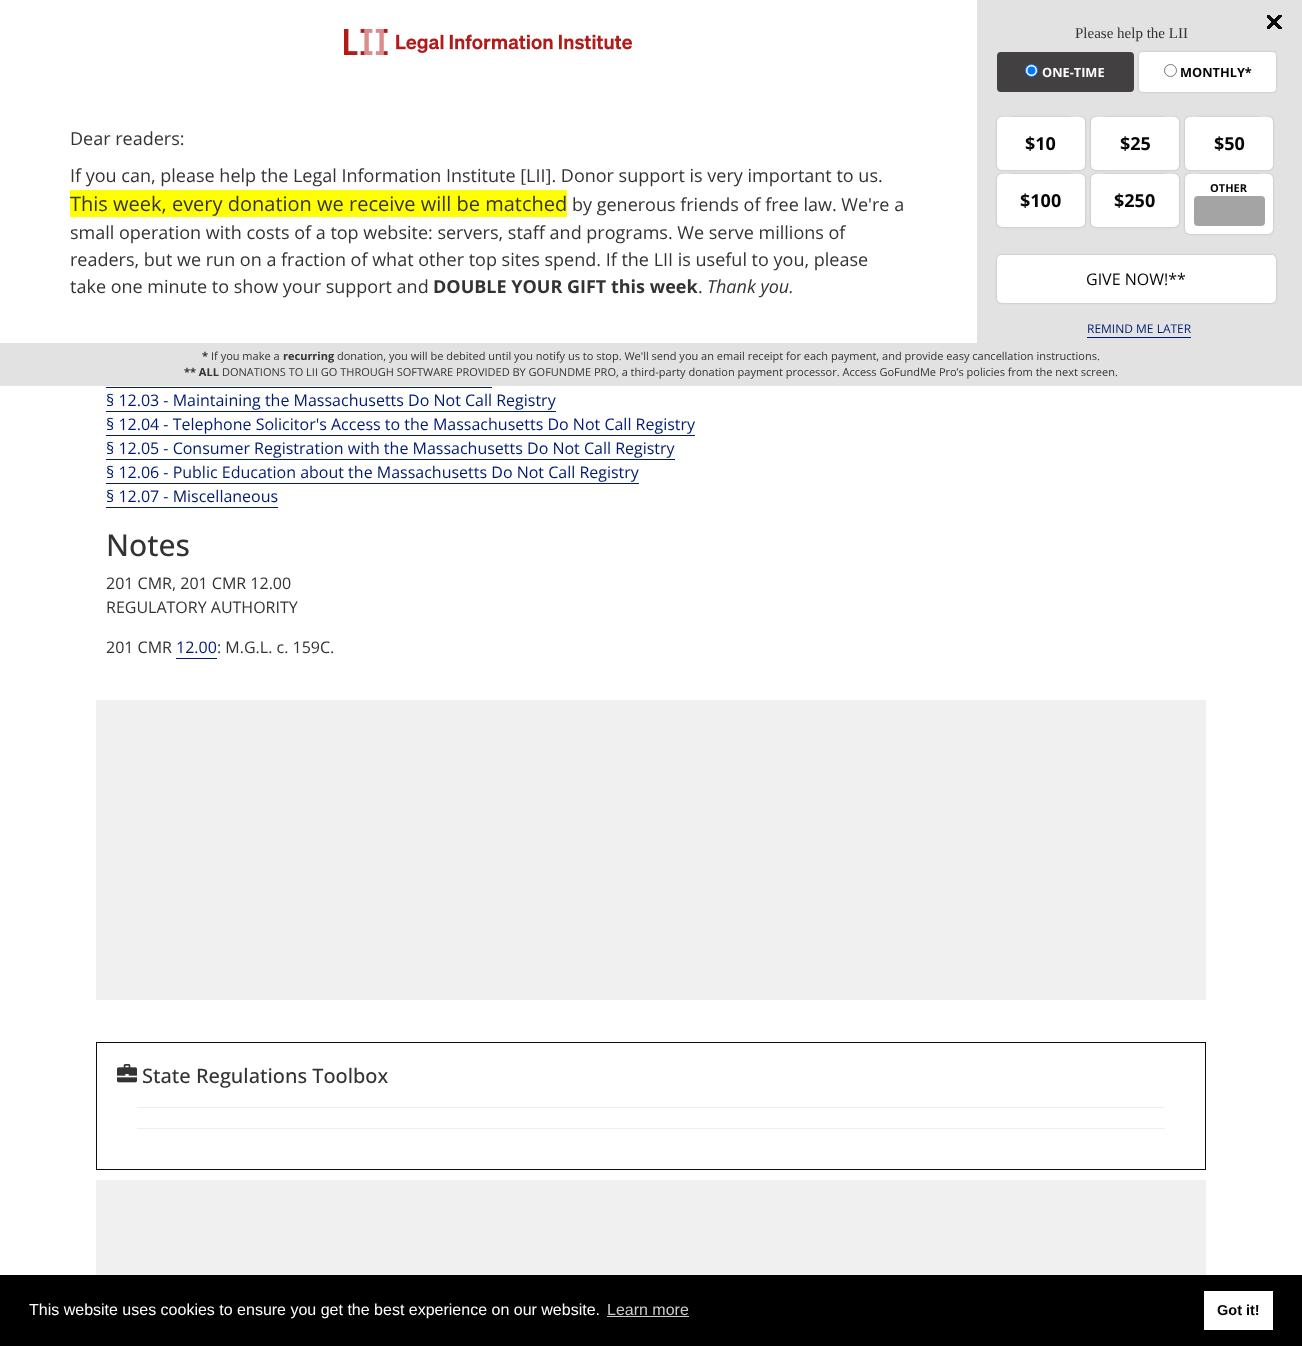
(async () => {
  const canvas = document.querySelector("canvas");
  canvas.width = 1302;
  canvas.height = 1346;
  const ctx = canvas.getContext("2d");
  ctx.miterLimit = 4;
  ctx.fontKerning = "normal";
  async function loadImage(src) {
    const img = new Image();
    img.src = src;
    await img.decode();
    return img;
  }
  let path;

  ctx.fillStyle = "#ffffff";
  ctx.fillRect(0, 0, 1302, 1346);
  ctx.drawImage(await loadImage("img/1.png"), 344, 29, 288, 26);
  ctx.fillStyle = "#ffff00";
  ctx.fillRect(70, 190, 497, 27);
  ctx.fillStyle = "#e2e2e2";
  ctx.fillRect(977, 0, 325, 343);
  ctx.drawImage(await loadImage("img/2.png"), 1267, 15, 15, 14);
  ctx.fillStyle = "#424040";
  ctx.beginPath();
  ctx.roundRect(997, 52, 137, 40, 4);
  ctx.fill();
  ctx.fillStyle = "#ffffff";
  ctx.beginPath();
  ctx.arc(1031.5, 70.5, 6, 0, Math.PI * 2);
  ctx.fill();
  ctx.strokeStyle = "#0075ff";
  ctx.stroke();
  ctx.fillStyle = "#0075ff";
  ctx.beginPath();
  ctx.arc(1031.5, 70.5, 4, 0, Math.PI * 2);
  ctx.fill();
  ctx.fillStyle = "rgba(0, 0, 0, 0.2)";
  ctx.filter = "blur(1px)";
  ctx.beginPath();
  ctx.roundRect(1139, 52, 137, 40, 4);
  ctx.fill();
  ctx.filter = "none";
  ctx.fillStyle = "#ffffff";
  ctx.beginPath();
  ctx.roundRect(1139, 52, 137, 40, 4);
  ctx.fill();
  ctx.fillStyle = "rgba(255, 255, 255, 0.75)";
  path = new Path2D("M1143 53H1272C1274 53 1276 55 1276 57V56C1276 54 1274 52 1272 52H1143C1141 52 1139 54 1139 56V57C1139 55 1141 53 1143 53Z");
  ctx.fill(path);
  ctx.beginPath();
  ctx.arc(1170.5, 70.5, 6, 0, Math.PI * 2);
  ctx.strokeStyle = "#767676";
  ctx.stroke();
  ctx.fillStyle = "rgba(0, 0, 0, 0.2)";
  ctx.filter = "blur(1px)";
  ctx.beginPath();
  ctx.roundRect(997, 117, 88, 53, 5);
  ctx.fill();
  ctx.filter = "none";
  ctx.fillStyle = "#ffffff";
  ctx.beginPath();
  ctx.roundRect(997, 117, 88, 53, 5);
  ctx.fill();
  ctx.fillStyle = "rgba(255, 255, 255, 0.75)";
  path = new Path2D("M1002 118H1080C1083 118 1085 120 1085 123C1085 114 1073 117 1067 117H1015C1009 117 997 114 997 123C997 120 999 118 1002 118Z");
  ctx.fill(path);
  ctx.fillStyle = "rgba(0, 0, 0, 0.2)";
  ctx.filter = "blur(1px)";
  ctx.beginPath();
  ctx.roundRect(1091, 117, 88, 53, 5);
  ctx.fill();
  ctx.filter = "none";
  ctx.fillStyle = "#ffffff";
  ctx.beginPath();
  ctx.roundRect(1091, 117, 88, 53, 5);
  ctx.fill();
  ctx.fillStyle = "rgba(255, 255, 255, 0.75)";
  path = new Path2D("M1096 118H1174C1177 118 1179 120 1179 123C1179 114 1167 117 1161 117H1109C1103 117 1091 114 1091 123C1091 120 1093 118 1096 118Z");
  ctx.fill(path);
  ctx.fillStyle = "rgba(0, 0, 0, 0.2)";
  ctx.filter = "blur(1px)";
  ctx.beginPath();
  ctx.roundRect(1185, 117, 88, 53, 5);
  ctx.fill();
  ctx.filter = "none";
  ctx.fillStyle = "#ffffff";
  ctx.beginPath();
  ctx.roundRect(1185, 117, 88, 53, 5);
  ctx.fill();
  ctx.fillStyle = "rgba(255, 255, 255, 0.75)";
  path = new Path2D("M1190 118H1268C1271 118 1273 120 1273 123C1273 114 1261 117 1255 117H1203C1197 117 1185 114 1185 123C1185 120 1187 118 1190 118Z");
  ctx.fill(path);
  ctx.fillStyle = "rgba(0, 0, 0, 0.2)";
  ctx.filter = "blur(1px)";
  ctx.beginPath();
  ctx.roundRect(1185, 174, 88, 60, 5);
  ctx.fill();
  ctx.filter = "none";
  ctx.fillStyle = "#ffffff";
  ctx.beginPath();
  ctx.roundRect(1185, 174, 88, 60, 5);
  ctx.fill();
  ctx.fillStyle = "rgba(255, 255, 255, 0.75)";
  path = new Path2D("M1190 175H1268C1271 175 1273 177 1273 180C1273 171 1261 174 1255 174H1203C1197 174 1185 171 1185 180C1185 177 1187 175 1190 175Z");
  ctx.fill(path);
  ctx.fillStyle = "#a4a4a4";
  ctx.beginPath();
  ctx.roundRect(1194, 196, 71, 30, 4);
  ctx.fill();
  ctx.fillStyle = "rgba(0, 0, 0, 0.2)";
  ctx.filter = "blur(1px)";
  ctx.beginPath();
  ctx.roundRect(997, 174, 88, 53, 5);
  ctx.fill();
  ctx.filter = "none";
  ctx.fillStyle = "#ffffff";
  ctx.beginPath();
  ctx.roundRect(997, 174, 88, 53, 5);
  ctx.fill();
  ctx.fillStyle = "rgba(255, 255, 255, 0.75)";
  path = new Path2D("M1002 175H1080C1083 175 1085 177 1085 180C1085 171 1073 174 1067 174H1015C1009 174 997 171 997 180C997 177 999 175 1002 175Z");
  ctx.fill(path);
  ctx.fillStyle = "rgba(0, 0, 0, 0.2)";
  ctx.filter = "blur(1px)";
  ctx.beginPath();
  ctx.roundRect(1091, 174, 88, 53, 5);
  ctx.fill();
  ctx.filter = "none";
  ctx.fillStyle = "#ffffff";
  ctx.beginPath();
  ctx.roundRect(1091, 174, 88, 53, 5);
  ctx.fill();
  ctx.fillStyle = "rgba(255, 255, 255, 0.75)";
  path = new Path2D("M1096 175H1174C1177 175 1179 177 1179 180C1179 171 1167 174 1161 174H1109C1103 174 1091 171 1091 180C1091 177 1093 175 1096 175Z");
  ctx.fill(path);
  ctx.fillStyle = "rgba(0, 0, 0, 0.2)";
  ctx.filter = "blur(1px)";
  ctx.beginPath();
  ctx.roundRect(997, 255, 279, 48, 5);
  ctx.fill();
  ctx.filter = "none";
  ctx.fillStyle = "#ffffff";
  ctx.beginPath();
  ctx.roundRect(997, 255, 279, 48, 5);
  ctx.fill();
  ctx.fillStyle = "rgba(255, 255, 255, 0.75)";
  path = new Path2D("M1002 256H1271C1274 256 1276 258 1276 261V260C1276 257 1274 255 1271 255H1002C999 255 997 257 997 260V261C997 258 999 256 1002 256Z");
  ctx.fill(path);
  for (const [x, y, w, h, color] of [
    [1087, 337, 104, 1, "#001c72"],
    [0, 343, 1302, 43, "#e2e2e2"],
    [106, 387, 386, 1, "#001c72"],
    [106, 411, 450, 1, "#001c72"],
    [106, 435, 589, 1, "#001c72"],
    [106, 459, 569, 1, "#001c72"],
    [106, 483, 533, 1, "#001c72"],
    [106, 507, 172, 1, "#001c72"],
    [176, 658, 41, 1, "#001c72"],
    [96, 700, 1110, 300, "#f0f0f0"],
  ]) {
    ctx.fillStyle = color;
    ctx.fillRect(x, y, w, h);
  }
  ctx.strokeStyle = "#0e0d0e";
  ctx.strokeRect(96.5, 1042.5, 1109, 127);
  ctx.drawImage(await loadImage("img/3.png"), 117, 1064, 20, 19);
  for (const [x, y, w, h, color] of [
    [137, 1107, 1028, 1, "#eeeeee"],
    [137, 1128, 1028, 1, "#eeeeee"],
    [96, 1180, 1110, 95, "#f0f0f0"],
    [0, 1275, 1302, 71, "#000000"],
    [607, 1316, 82, 1, "#cccccc"],
    [1204, 1291, 69, 39, "#ffffff"],
  ]) {
    ctx.fillStyle = color;
    ctx.fillRect(x, y, w, h);
  }
  ctx.font = "18px Open Sans";
  ctx.fillStyle = "#333333";
  ctx.fillText("Dear readers:", 70, 145);
  ctx.fillText("If you can, please help the Legal Information Institute [LII]. Donor support is very important to us.", 70, 182);
  ctx.font = "20px Open Sans";
  ctx.fillText("This week, every donation we receive will be matched", 70, 211);
  ctx.font = "18px Open Sans";
  for (const [text, x, y] of [
    ["by generous friends of free law. We're a", 572, 211],
    ["small operation with costs of a top website: servers, staff and programs. We serve millions of", 70, 239],
    ["readers, but we run on a fraction of what other top sites spend. If the LII is useful to you, please", 70, 266],
    ["take one minute to show your support and", 70, 293],
  ]) {
    ctx.fillText(text, x, y);
  }
  ctx.font = "bold 18px Open Sans";
  ctx.fillText("DOUBLE YOUR GIFT this week", 433, 293);
  ctx.font = "18px Open Sans";
  ctx.fillText(".", 698, 293);
  ctx.font = "italic 18px Open Sans";
  ctx.fillText("Thank you.", 707, 293);
  ctx.font = "15px Liberation Serif";
  ctx.fillText("Please help the LII", 1075, 38);
  ctx.font = "bold 12.75px Open Sans";
  ctx.fillStyle = "#ffffff";
  ctx.fillText("ONE-TIME", 1042, 77);
  ctx.fillStyle = "#050505";
  ctx.fillText("MONTHLY*", 1180, 77);
  ctx.font = "bold 18px Open Sans";
  for (const [text, x, y] of [
    ["$10", 1025, 150],
    ["$25", 1120, 150],
    ["$50", 1214, 150],
  ]) {
    ctx.fillText(text, x, y);
  }
  ctx.font = "bold 11px Open Sans";
  ctx.fillText("OTHER", 1210, 192);
  ctx.font = "bold 18px Open Sans";
  ctx.fillText("$100", 1020, 207);
  ctx.fillText("$250", 1114, 207);
  ctx.font = "16px Open Sans";
  ctx.fillText("GIVE NOW!**", 1086, 285);
  ctx.font = "12px Open Sans";
  ctx.fillStyle = "#001c72";
  ctx.fillText("REMIND ME LATER", 1087, 333);
  ctx.font = "bold 11px Open Sans";
  ctx.fillStyle = "#333333";
  ctx.fillText("*", 202, 360);
  ctx.font = "11px Open Sans";
  ctx.fillText("If you make a", 211, 360);
  ctx.font = "bold 11px Open Sans";
  ctx.fillText("recurring", 283, 360);
  ctx.font = "11px Open Sans";
  ctx.fillText("donation, you will be debited until you notify us to stop. We'll send you an email receipt for each payment, and provide easy cancellation instructions.", 337, 360);
  ctx.font = "bold 11px Open Sans";
  ctx.fillText("** ALL", 184, 376);
  ctx.font = "11px Open Sans";
  ctx.fillText("DONATIONS TO LII GO THROUGH SOFTWARE PROVIDED BY GOFUNDME PRO, a third-party donation payment processor. Access GoFundMe Pro’s policies from the next screen.", 222, 376);
  ctx.font = "16px Open Sans";
  ctx.fillStyle = "#001c72";
  for (const [text, x, y] of [
    ["§ 12.03 - Maintaining the Massachusetts Do Not Call Registry", 106, 406],
    ["§ 12.04 - Telephone Solicitor's Access to the Massachusetts Do Not Call Registry", 106, 430],
    ["§ 12.05 - Consumer Registration with the Massachusetts Do Not Call Registry", 106, 454],
    ["§ 12.06 - Public Education about the Massachusetts Do Not Call Registry", 106, 478],
    ["§ 12.07 - Miscellaneous", 106, 502],
  ]) {
    ctx.fillText(text, x, y);
  }
  ctx.font = "500 30px Open Sans";
  ctx.fillStyle = "#333333";
  ctx.fillText("Notes", 106, 556);
  ctx.font = "16px Open Sans";
  for (const [text, x, y] of [
    ["201 CMR, 201 CMR 12.00", 106, 589],
    ["REGULATORY AUTHORITY", 106, 613],
    ["201 CMR", 106, 653],
  ]) {
    ctx.fillText(text, x, y);
  }
  ctx.fillStyle = "#001c72";
  ctx.fillText("12.00", 176, 653);
  ctx.fillStyle = "#333333";
  ctx.fillText(": M.G.L. c. 159C.", 217, 653);
  ctx.font = "500 20px Open Sans";
  ctx.fillText("State Regulations Toolbox", 142, 1083);
  ctx.font = "16px Liberation Sans";
  ctx.fillStyle = "#ffffff";
  ctx.fillText("This website uses cookies to ensure you get the best experience on our website.", 29, 1315);
  ctx.fillStyle = "#cccccc";
  ctx.fillText("Learn more", 607, 1315);
  ctx.font = "bold 14.5px Liberation Sans";
  ctx.fillStyle = "#050505";
  ctx.fillText("Got it!", 1217, 1315);
})();
